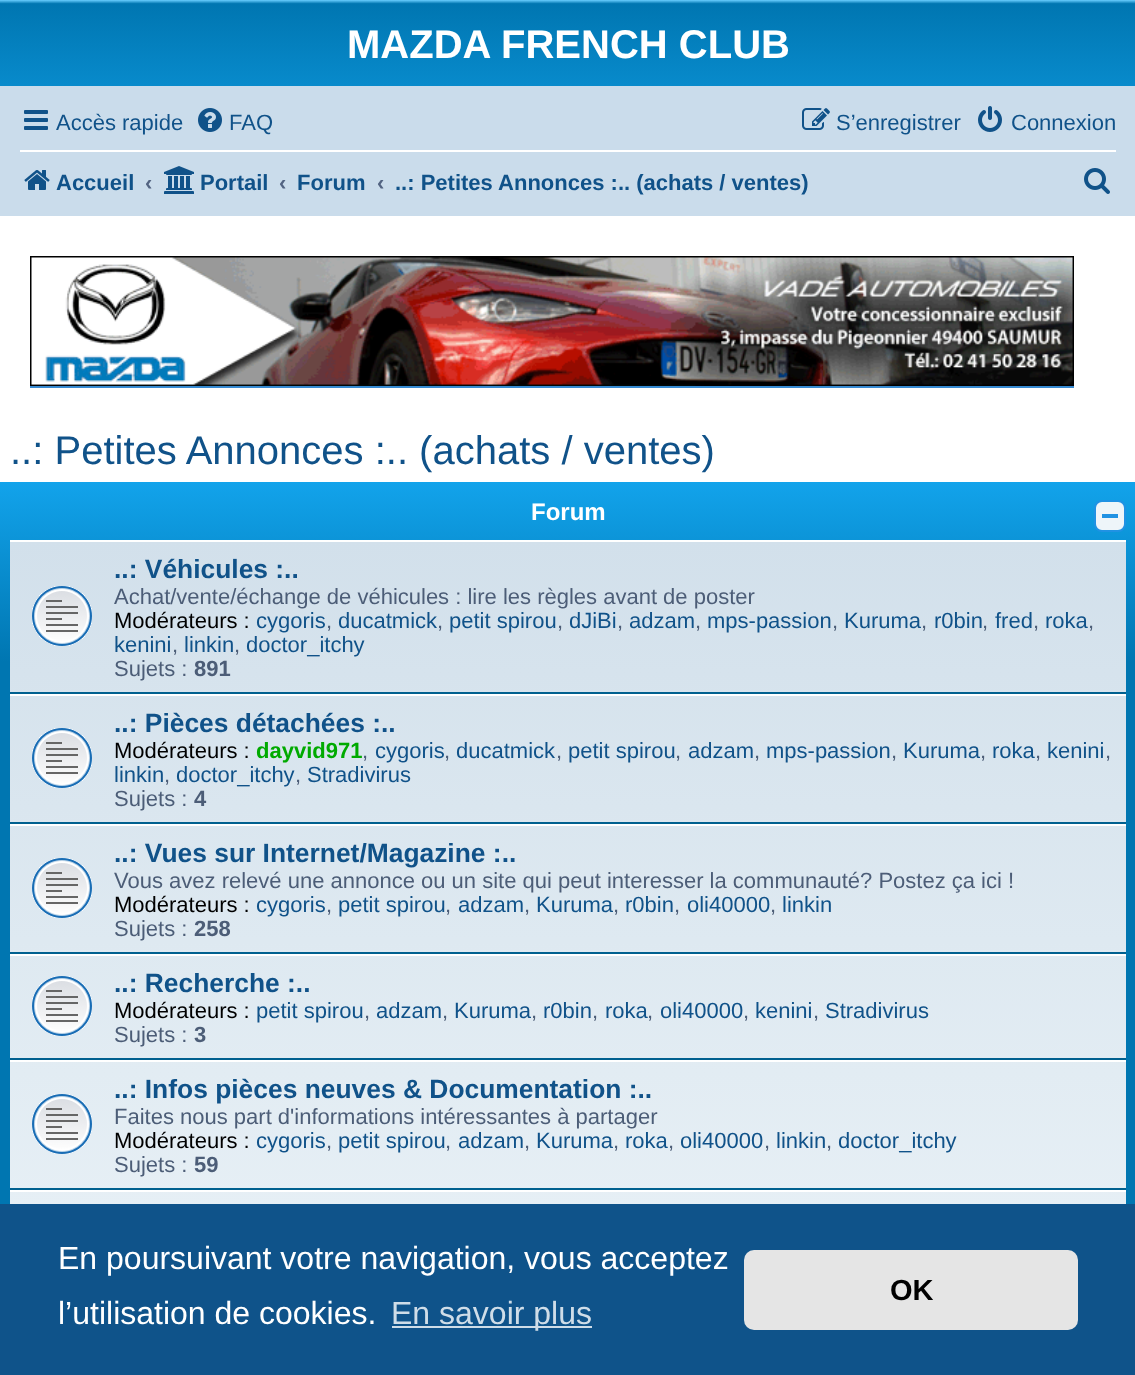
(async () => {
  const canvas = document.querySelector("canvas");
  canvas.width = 1135;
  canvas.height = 1375;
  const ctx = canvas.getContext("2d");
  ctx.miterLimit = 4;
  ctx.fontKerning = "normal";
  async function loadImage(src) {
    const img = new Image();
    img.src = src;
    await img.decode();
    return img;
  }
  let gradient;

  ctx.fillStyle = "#ffffff";
  ctx.fillRect(0, 0, 1135, 1375);
  gradient = ctx.createLinearGradient(568, 0, 568, 184);
  gradient.addColorStop(0, "#6aceff");
  gradient.addColorStop(0.02, "#0076b1");
  gradient.addColorStop(1, "#12a3eb");
  ctx.fillStyle = gradient;
  ctx.fillRect(0, 0, 1135, 86);
  ctx.fillStyle = "#cadceb";
  ctx.fillRect(0, 86, 1135, 130);
  ctx.drawImage(await loadImage("img/1.png"), 24, 110, 24, 20);
  ctx.drawImage(await loadImage("img/2.png"), 198, 108, 24, 24);
  ctx.drawImage(await loadImage("img/3.png"), 802, 108, 28, 22);
  ctx.drawImage(await loadImage("img/4.png"), 978, 106, 24, 26);
  ctx.fillStyle = "#ffffff";
  ctx.fillRect(20, 150, 1096, 2);
  ctx.drawImage(await loadImage("img/5.png"), 24, 170, 26, 20);
  ctx.drawImage(await loadImage("img/6.png"), 164, 166, 30, 28);
  ctx.drawImage(await loadImage("img/7.png"), 1084, 168, 26, 26);
  ctx.fillStyle = "#368ad2";
  ctx.fillRect(30, 386, 1044, 2);
  ctx.drawImage(await loadImage("img/8.png"), 30, 256, 1044, 130);
  gradient = ctx.createLinearGradient(568, 482, 568, 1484);
  gradient.addColorStop(0, "#6aceff");
  gradient.addColorStop(0, "#12a3eb");
  gradient.addColorStop(0.18, "#0076b1");
  gradient.addColorStop(1, "#0076b1");
  ctx.fillStyle = gradient;
  ctx.fillRect(0, 482, 1135, 722);
  ctx.fillStyle = "#eef5f9";
  ctx.beginPath();
  ctx.roundRect(1095, 501, 30, 30, 7);
  ctx.fill();
  ctx.strokeStyle = "#2092e3";
  ctx.lineWidth = 2;
  ctx.stroke();
  ctx.fillStyle = "#2092e3";
  ctx.fillRect(1102, 514, 16, 4);
  gradient = ctx.createLinearGradient(568, 540, 568, 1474);
  gradient.addColorStop(0, "#d2e0eb");
  gradient.addColorStop(1, "#eef5f9");
  ctx.fillStyle = gradient;
  ctx.fillRect(10, 542, 1116, 662);
  ctx.fillStyle = "#ffffff";
  ctx.fillRect(10, 540, 1116, 2);
  ctx.fillStyle = "#00608f";
  ctx.fillRect(10, 692, 1116, 2);
  ctx.drawImage(await loadImage("img/9.png"), 32, 586, 60, 60);
  ctx.fillStyle = "#ffffff";
  ctx.fillRect(10, 694, 1116, 2);
  ctx.fillStyle = "#00608f";
  ctx.fillRect(10, 822, 1116, 2);
  ctx.drawImage(await loadImage("img/10.png"), 32, 728, 60, 60);
  ctx.fillStyle = "#ffffff";
  ctx.fillRect(10, 824, 1116, 2);
  ctx.fillStyle = "#00608f";
  ctx.fillRect(10, 952, 1116, 2);
  ctx.drawImage(await loadImage("img/11.png"), 32, 858, 60, 60);
  ctx.fillStyle = "#ffffff";
  ctx.fillRect(10, 954, 1116, 2);
  ctx.fillStyle = "#00608f";
  ctx.fillRect(10, 1058, 1116, 2);
  ctx.drawImage(await loadImage("img/12.png"), 32, 976, 60, 60);
  ctx.fillStyle = "#ffffff";
  ctx.fillRect(10, 1060, 1116, 2);
  ctx.fillStyle = "#00608f";
  ctx.fillRect(10, 1188, 1116, 2);
  ctx.drawImage(await loadImage("img/13.png"), 32, 1094, 60, 60);
  for (const [x, y, w, h, color] of [
    [10, 1190, 1116, 2, "#ffffff"],
    [0, 1204, 1135, 171, "#0f538a"],
    [392, 1326, 200, 2, "#cfdde8"],
  ]) {
    ctx.fillStyle = color;
    ctx.fillRect(x, y, w, h);
  }
  ctx.fillStyle = "#e5e5e5";
  ctx.beginPath();
  ctx.roundRect(744, 1250, 334, 80, 10);
  ctx.fill();
  ctx.font = "bold 40px Liberation Sans";
  ctx.fillStyle = "#ffffff";
  ctx.fillText("MAZDA FRENCH CLUB", 347, 58);
  ctx.font = "22px Liberation Sans";
  ctx.fillStyle = "#105289";
  for (const [text, x, y] of [
    ["Accès rapide", 56, 130],
    ["FAQ", 229, 130],
    ["S’enregistrer", 836, 130],
    ["Connexion", 1011, 130],
  ]) {
    ctx.fillText(text, x, y);
  }
  ctx.font = "bold 22px Liberation Sans";
  ctx.fillText("Accueil", 56, 190);
  ctx.fillStyle = "#536482";
  ctx.fillText("‹", 145, 190);
  ctx.fillStyle = "#105289";
  ctx.fillText("Portail", 200, 190);
  ctx.fillStyle = "#536482";
  ctx.fillText("‹", 279, 190);
  ctx.fillStyle = "#105289";
  ctx.fillText("Forum", 297, 190);
  ctx.fillStyle = "#536482";
  ctx.fillText("‹", 377, 190);
  ctx.fillStyle = "#105289";
  ctx.fillText("..: Petites Annonces :.. (achats / ventes)", 395, 190);
  ctx.font = "40px Liberation Sans";
  ctx.fillText("..: Petites Annonces :.. (achats / ventes)", 10, 464);
  ctx.font = "bold 24px Liberation Sans";
  ctx.fillStyle = "#ffffff";
  ctx.fillText("Forum", 531, 520);
  ctx.font = "bold 26.4px Liberation Sans";
  ctx.fillStyle = "#105289";
  ctx.fillText("..: Véhicules :..", 114, 578);
  ctx.font = "22px Liberation Sans";
  ctx.fillStyle = "#4c5d77";
  ctx.fillText("Achat/vente/échange de véhicules : lire les règles avant de poster", 114, 604);
  ctx.fillStyle = "#000000";
  ctx.fillText("Modérateurs :", 114, 628);
  ctx.fillStyle = "#105289";
  ctx.fillText("cygoris", 256, 628);
  ctx.fillStyle = "#4c5d77";
  ctx.fillText(",", 326, 628);
  ctx.fillStyle = "#105289";
  ctx.fillText("ducatmick", 338, 628);
  ctx.fillStyle = "#4c5d77";
  ctx.fillText(",", 437, 628);
  ctx.fillStyle = "#105289";
  ctx.fillText("petit spirou", 449, 628);
  ctx.fillStyle = "#4c5d77";
  ctx.fillText(",", 557, 628);
  ctx.fillStyle = "#105289";
  ctx.fillText("dJiBi", 569, 628);
  ctx.fillStyle = "#4c5d77";
  ctx.fillText(",", 617, 628);
  ctx.fillStyle = "#105289";
  ctx.fillText("adzam", 629, 628);
  ctx.fillStyle = "#4c5d77";
  ctx.fillText(",", 695, 628);
  ctx.fillStyle = "#105289";
  ctx.fillText("mps-passion", 707, 628);
  ctx.fillStyle = "#4c5d77";
  ctx.fillText(",", 832, 628);
  ctx.fillStyle = "#105289";
  ctx.fillText("Kuruma", 844, 628);
  ctx.fillStyle = "#4c5d77";
  ctx.fillText(",", 921, 628);
  ctx.fillStyle = "#105289";
  ctx.fillText("r0bin", 934, 628);
  ctx.fillStyle = "#4c5d77";
  ctx.fillText(",", 982, 628);
  ctx.fillStyle = "#105289";
  ctx.fillText("fred", 995, 628);
  ctx.fillStyle = "#4c5d77";
  ctx.fillText(",", 1033, 628);
  ctx.fillStyle = "#105289";
  ctx.fillText("roka", 1045, 628);
  ctx.fillStyle = "#4c5d77";
  ctx.fillText(",", 1088, 628);
  ctx.fillStyle = "#105289";
  ctx.fillText("kenini", 114, 652);
  ctx.fillStyle = "#4c5d77";
  ctx.fillText(",", 172, 652);
  ctx.fillStyle = "#105289";
  ctx.fillText("linkin", 184, 652);
  ctx.fillStyle = "#4c5d77";
  ctx.fillText(",", 234, 652);
  ctx.fillStyle = "#105289";
  ctx.fillText("doctor_itchy", 246, 652);
  ctx.fillStyle = "#4c5d77";
  ctx.fillText("Sujets :", 114, 676);
  ctx.font = "bold 22px Liberation Sans";
  ctx.fillText("891", 194, 676);
  ctx.font = "bold 26.4px Liberation Sans";
  ctx.fillStyle = "#105289";
  ctx.fillText("..: Pièces détachées :..", 114, 732);
  ctx.font = "22px Liberation Sans";
  ctx.fillStyle = "#000000";
  ctx.fillText("Modérateurs :", 114, 758);
  ctx.font = "bold 22px Liberation Sans";
  ctx.fillStyle = "#00aa00";
  ctx.fillText("dayvid971", 256, 758);
  ctx.font = "22px Liberation Sans";
  ctx.fillStyle = "#4c5d77";
  ctx.fillText(",", 362, 758);
  ctx.fillStyle = "#105289";
  ctx.fillText("cygoris", 375, 758);
  ctx.fillStyle = "#4c5d77";
  ctx.fillText(",", 444, 758);
  ctx.fillStyle = "#105289";
  ctx.fillText("ducatmick", 456, 758);
  ctx.fillStyle = "#4c5d77";
  ctx.fillText(",", 556, 758);
  ctx.fillStyle = "#105289";
  ctx.fillText("petit spirou", 568, 758);
  ctx.fillStyle = "#4c5d77";
  ctx.fillText(",", 675, 758);
  ctx.fillStyle = "#105289";
  ctx.fillText("adzam", 688, 758);
  ctx.fillStyle = "#4c5d77";
  ctx.fillText(",", 754, 758);
  ctx.fillStyle = "#105289";
  ctx.fillText("mps-passion", 766, 758);
  ctx.fillStyle = "#4c5d77";
  ctx.fillText(",", 891, 758);
  ctx.fillStyle = "#105289";
  ctx.fillText("Kuruma", 903, 758);
  ctx.fillStyle = "#4c5d77";
  ctx.fillText(",", 980, 758);
  ctx.fillStyle = "#105289";
  ctx.fillText("roka", 992, 758);
  ctx.fillStyle = "#4c5d77";
  ctx.fillText(",", 1035, 758);
  ctx.fillStyle = "#105289";
  ctx.fillText("kenini", 1047, 758);
  ctx.fillStyle = "#4c5d77";
  ctx.fillText(",", 1105, 758);
  ctx.fillStyle = "#105289";
  ctx.fillText("linkin", 114, 782);
  ctx.fillStyle = "#4c5d77";
  ctx.fillText(",", 164, 782);
  ctx.fillStyle = "#105289";
  ctx.fillText("doctor_itchy", 176, 782);
  ctx.fillStyle = "#4c5d77";
  ctx.fillText(",", 295, 782);
  ctx.fillStyle = "#105289";
  ctx.fillText("Stradivirus", 307, 782);
  ctx.fillStyle = "#4c5d77";
  ctx.fillText("Sujets :", 114, 806);
  ctx.font = "bold 22px Liberation Sans";
  ctx.fillText("4", 194, 806);
  ctx.font = "bold 26.4px Liberation Sans";
  ctx.fillStyle = "#105289";
  ctx.fillText("..: Vues sur Internet/Magazine :..", 114, 862);
  ctx.font = "22px Liberation Sans";
  ctx.fillStyle = "#4c5d77";
  ctx.fillText("Vous avez relevé une annonce ou un site qui peut interesser la communauté? Postez ça ici !", 114, 888);
  ctx.fillStyle = "#000000";
  ctx.fillText("Modérateurs :", 114, 912);
  ctx.fillStyle = "#105289";
  ctx.fillText("cygoris", 256, 912);
  ctx.fillStyle = "#4c5d77";
  ctx.fillText(",", 326, 912);
  ctx.fillStyle = "#105289";
  ctx.fillText("petit spirou", 338, 912);
  ctx.fillStyle = "#4c5d77";
  ctx.fillText(",", 445, 912);
  ctx.fillStyle = "#105289";
  ctx.fillText("adzam", 458, 912);
  ctx.fillStyle = "#4c5d77";
  ctx.fillText(",", 524, 912);
  ctx.fillStyle = "#105289";
  ctx.fillText("Kuruma", 536, 912);
  ctx.fillStyle = "#4c5d77";
  ctx.fillText(",", 613, 912);
  ctx.fillStyle = "#105289";
  ctx.fillText("r0bin", 625, 912);
  ctx.fillStyle = "#4c5d77";
  ctx.fillText(",", 674, 912);
  ctx.fillStyle = "#105289";
  ctx.fillText("oli40000", 687, 912);
  ctx.fillStyle = "#4c5d77";
  ctx.fillText(",", 770, 912);
  ctx.fillStyle = "#105289";
  ctx.fillText("linkin", 782, 912);
  ctx.fillStyle = "#4c5d77";
  ctx.fillText("Sujets :", 114, 936);
  ctx.font = "bold 22px Liberation Sans";
  ctx.fillText("258", 194, 936);
  ctx.font = "bold 26.4px Liberation Sans";
  ctx.fillStyle = "#105289";
  ctx.fillText("..: Recherche :..", 114, 992);
  ctx.font = "22px Liberation Sans";
  ctx.fillStyle = "#000000";
  ctx.fillText("Modérateurs :", 114, 1018);
  ctx.fillStyle = "#105289";
  ctx.fillText("petit spirou", 256, 1018);
  ctx.fillStyle = "#4c5d77";
  ctx.fillText(",", 364, 1018);
  ctx.fillStyle = "#105289";
  ctx.fillText("adzam", 376, 1018);
  ctx.fillStyle = "#4c5d77";
  ctx.fillText(",", 442, 1018);
  ctx.fillStyle = "#105289";
  ctx.fillText("Kuruma", 454, 1018);
  ctx.fillStyle = "#4c5d77";
  ctx.fillText(",", 531, 1018);
  ctx.fillStyle = "#105289";
  ctx.fillText("r0bin", 543, 1018);
  ctx.fillStyle = "#4c5d77";
  ctx.fillText(",", 592, 1018);
  ctx.fillStyle = "#105289";
  ctx.fillText("roka", 605, 1018);
  ctx.fillStyle = "#4c5d77";
  ctx.fillText(",", 647, 1018);
  ctx.fillStyle = "#105289";
  ctx.fillText("oli40000", 660, 1018);
  ctx.fillStyle = "#4c5d77";
  ctx.fillText(",", 743, 1018);
  ctx.fillStyle = "#105289";
  ctx.fillText("kenini", 755, 1018);
  ctx.fillStyle = "#4c5d77";
  ctx.fillText(",", 813, 1018);
  ctx.fillStyle = "#105289";
  ctx.fillText("Stradivirus", 825, 1018);
  ctx.fillStyle = "#4c5d77";
  ctx.fillText("Sujets :", 114, 1042);
  ctx.font = "bold 22px Liberation Sans";
  ctx.fillText("3", 194, 1042);
  ctx.font = "bold 26.4px Liberation Sans";
  ctx.fillStyle = "#105289";
  ctx.fillText("..: Infos pièces neuves & Documentation :..", 114, 1098);
  ctx.font = "22px Liberation Sans";
  ctx.fillStyle = "#4c5d77";
  ctx.fillText("Faites nous part d'informations intéressantes à partager", 114, 1124);
  ctx.fillStyle = "#000000";
  ctx.fillText("Modérateurs :", 114, 1148);
  ctx.fillStyle = "#105289";
  ctx.fillText("cygoris", 256, 1148);
  ctx.fillStyle = "#4c5d77";
  ctx.fillText(",", 326, 1148);
  ctx.fillStyle = "#105289";
  ctx.fillText("petit spirou", 338, 1148);
  ctx.fillStyle = "#4c5d77";
  ctx.fillText(",", 445, 1148);
  ctx.fillStyle = "#105289";
  ctx.fillText("adzam", 458, 1148);
  ctx.fillStyle = "#4c5d77";
  ctx.fillText(",", 524, 1148);
  ctx.fillStyle = "#105289";
  ctx.fillText("Kuruma", 536, 1148);
  ctx.fillStyle = "#4c5d77";
  ctx.fillText(",", 613, 1148);
  ctx.fillStyle = "#105289";
  ctx.fillText("roka", 625, 1148);
  ctx.fillStyle = "#4c5d77";
  ctx.fillText(",", 668, 1148);
  ctx.fillStyle = "#105289";
  ctx.fillText("oli40000", 680, 1148);
  ctx.fillStyle = "#4c5d77";
  ctx.fillText(",", 764, 1148);
  ctx.fillStyle = "#105289";
  ctx.fillText("linkin", 776, 1148);
  ctx.fillStyle = "#4c5d77";
  ctx.fillText(",", 826, 1148);
  ctx.fillStyle = "#105289";
  ctx.fillText("doctor_itchy", 838, 1148);
  ctx.fillStyle = "#4c5d77";
  ctx.fillText("Sujets :", 114, 1172);
  ctx.font = "bold 22px Liberation Sans";
  ctx.fillText("59", 194, 1172);
  ctx.font = "32px Liberation Sans";
  ctx.fillStyle = "#ffffff";
  ctx.fillText("En poursuivant votre navigation, vous acceptez", 58, 1269);
  ctx.fillText("l’utilisation de cookies.", 58, 1324);
  ctx.fillStyle = "#cfdde8";
  ctx.fillText("En savoir plus", 391, 1324);
  ctx.font = "bold 29px Liberation Sans";
  ctx.fillStyle = "#000000";
  ctx.fillText("OK", 890, 1300);
})();
